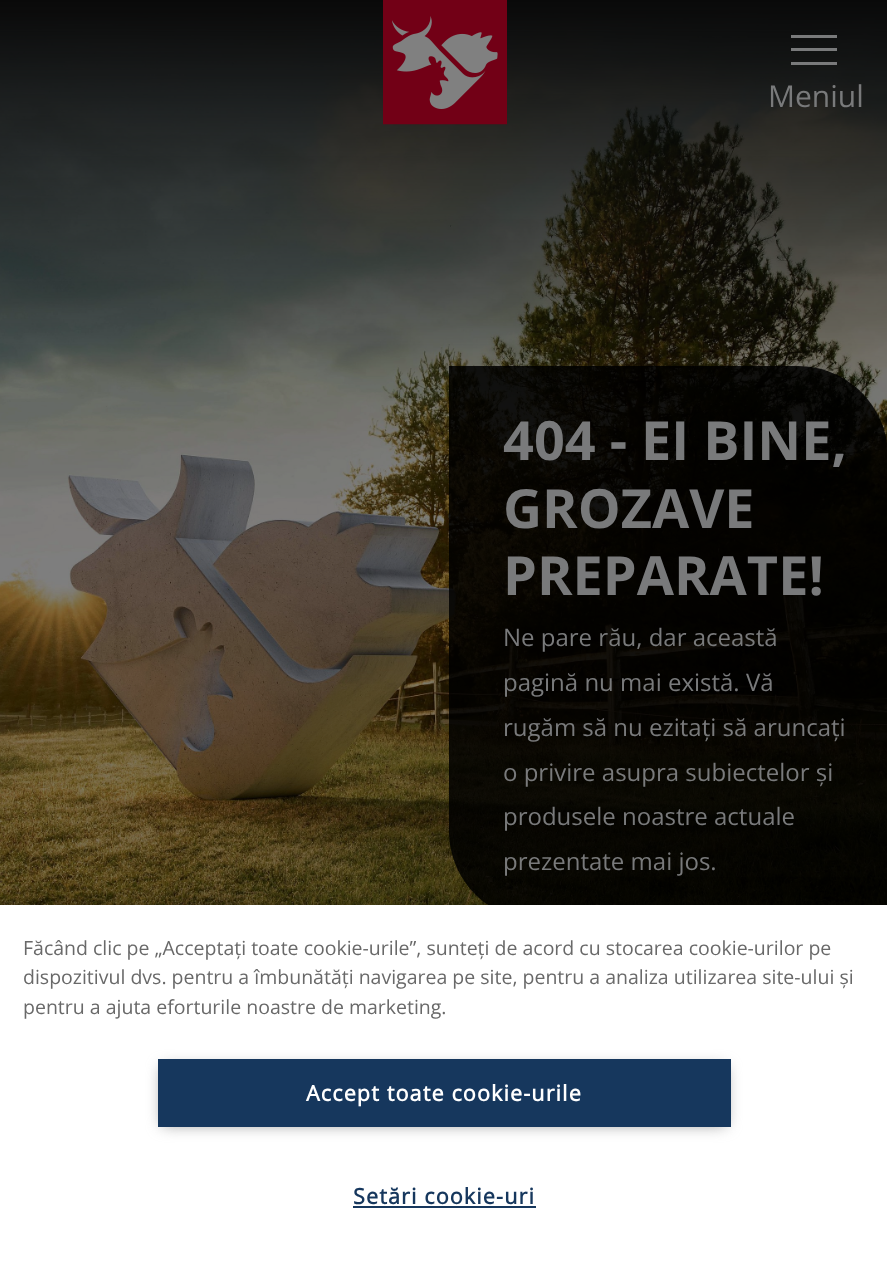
(async () => {
  const canvas = document.querySelector("canvas");
  canvas.width = 887;
  canvas.height = 1274;
  const ctx = canvas.getContext("2d");
  ctx.miterLimit = 4;
  ctx.fontKerning = "normal";
  async function loadImage(src) {
    const img = new Image();
    img.src = src;
    await img.decode();
    return img;
  }
  let path;

  ctx.fillStyle = "#ffffff";
  ctx.fillRect(0, 0, 887, 1274);
  ctx.drawImage(await loadImage("img/2.png"), 0, 0, 887, 905);
  ctx.drawImage(await loadImage("img/1.png"), 383, 0, 124, 125);
  for (const [x, y, w, h, color] of [
    [791, 35, 46, 3, "#797a7b"],
    [791, 48, 46, 3, "#797a7b"],
    [791, 62, 46, 3, "#797a7b"],
  ]) {
    ctx.fillStyle = color;
    ctx.fillRect(x, y, w, h);
  }
  ctx.fillStyle = "rgba(0, 0, 0, 0.85)";
  path = new Path2D("M449 366H798C847.5 366 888 406.5 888 456V921H539C489.5 921 449 880.5 449 831Z");
  ctx.fill(path);
  ctx.fillStyle = "rgba(0, 0, 0, 0.2)";
  ctx.filter = "blur(13.5px)";
  ctx.beginPath();
  ctx.rect(0, 905, 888, 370);
  ctx.fill();
  ctx.filter = "none";
  ctx.fillStyle = "#ffffff";
  ctx.fillRect(0, 905, 887, 369);
  ctx.fillStyle = "#999999";
  ctx.filter = "blur(7.5px)";
  ctx.beginPath();
  ctx.rect(162, 1067, 564, 58);
  ctx.fill();
  ctx.filter = "none";
  ctx.fillStyle = "#16375d";
  ctx.fillRect(158, 1059, 573, 68);
  ctx.fillRect(353, 1206, 183, 2);
  ctx.font = "30px Open Sans";
  ctx.fillStyle = "#797a7b";
  ctx.fillText("Meniul", 768, 107);
  ctx.font = "bold 54px Open Sans";
  for (const [text, x, y] of [
    ["404 - EI BINE,", 503, 460],
    ["GROZAVE", 503, 528],
    ["PREPARATE!", 503, 595],
  ]) {
    ctx.fillText(text, x, y);
  }
  ctx.font = "24px Open Sans";
  for (const [text, x, y] of [
    ["Ne pare rău, dar această", 503, 646],
    ["pagină nu mai există. Vă", 503, 691],
    ["rugăm să nu ezitați să aruncați", 503, 736],
    ["o privire asupra subiectelor și", 503, 781],
    ["produsele noastre actuale", 503, 825],
    ["prezentate mai jos.", 503, 870],
  ]) {
    ctx.fillText(text, x, y);
  }
  ctx.font = "19.5px Open Sans";
  ctx.fillStyle = "#696969";
  for (const [text, x, y] of [
    ["Făcând clic pe „Acceptați toate cookie-urile”, sunteți de acord cu stocarea cookie-urilor pe", 23, 955],
    ["dispozitivul dvs. pentru a îmbunătăți navigarea pe site, pentru a analiza utilizarea site-ului și", 23, 984],
    ["pentru a ajuta eforturile noastre de marketing.", 23, 1014],
  ]) {
    ctx.fillText(text, x, y);
  }
  ctx.letterSpacing = "1.1px";
  ctx.font = "bold 21.6px 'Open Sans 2'";
  ctx.fillStyle = "#ffffff";
  ctx.fillText("Accept toate cookie-urile", 306, 1101);
  ctx.fillStyle = "#16375d";
  ctx.fillText("Setări cookie-uri", 353, 1204);
})();
